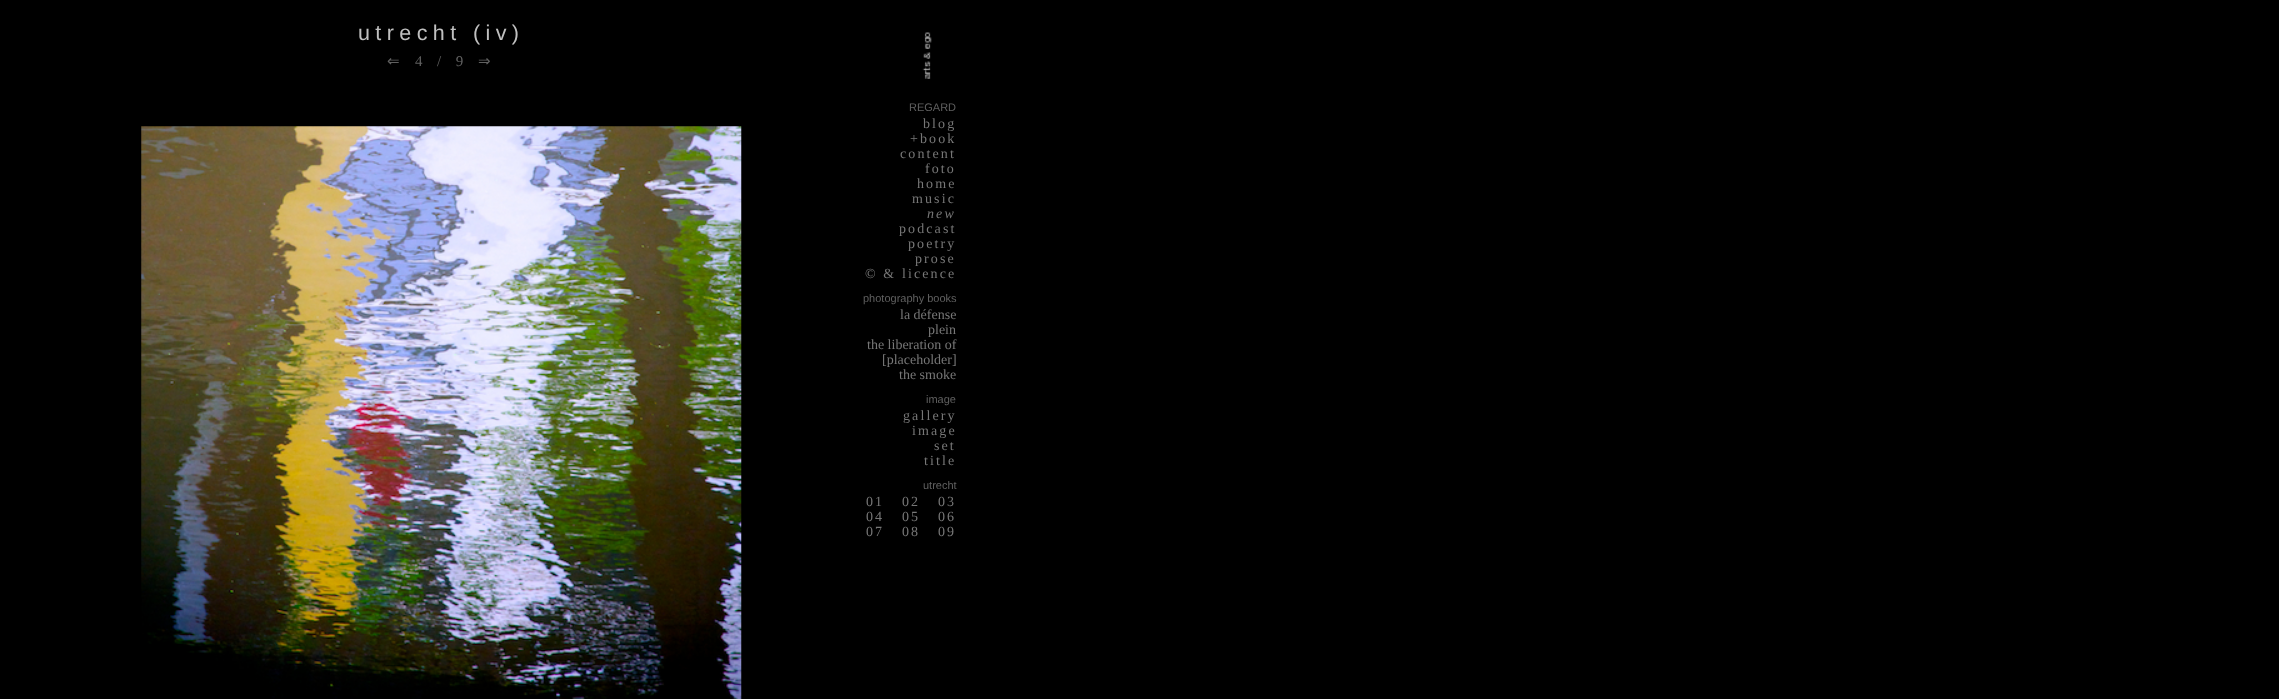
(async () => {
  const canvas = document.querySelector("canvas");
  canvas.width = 2279;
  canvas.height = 699;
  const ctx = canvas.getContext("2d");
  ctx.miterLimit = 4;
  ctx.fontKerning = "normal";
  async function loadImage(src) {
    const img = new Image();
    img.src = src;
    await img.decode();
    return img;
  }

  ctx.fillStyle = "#000000";
  ctx.fillRect(0, 0, 2279, 699);
  ctx.drawImage(await loadImage("img/1.png"), 141, 126, 601, 573);
  ctx.drawImage(await loadImage("img/2.png"), 922, 32, 10, 47);
  ctx.letterSpacing = "5.4px";
  ctx.font = "21.5px Liberation Sans";
  ctx.fillStyle = "#c0c0c0";
  ctx.fillText("utrecht (iv)", 358, 40);
  ctx.font = "15px DejaVu Sans";
  ctx.fillStyle = "#606060";
  ctx.fillText("⇐", 387, 66);
  ctx.font = "15px Liberation Serif";
  ctx.fillText("4 / 9", 415, 66);
  ctx.font = "15px DejaVu Sans";
  ctx.fillText("⇒", 478, 66);
  ctx.letterSpacing = "0px";
  ctx.font = "11px Liberation Sans";
  ctx.fillText("REGARD", 909, 111);
  ctx.letterSpacing = "2.1px";
  ctx.font = "14px Liberation Serif";
  ctx.fillStyle = "#777777";
  for (const [text, x, y] of [
    ["blog", 923, 128],
    ["+book", 910, 143],
    ["content", 900, 158],
    ["foto", 925, 173],
    ["home", 917, 188],
    ["music", 912, 203],
  ]) {
    ctx.fillText(text, x, y);
  }
  ctx.font = "italic 14px Liberation Serif";
  ctx.fillText("new", 927, 218);
  ctx.font = "14px Liberation Serif";
  for (const [text, x, y] of [
    ["podcast", 899, 233],
    ["poetry", 908, 248],
    ["prose", 915, 263],
    ["© & licence", 865, 278],
  ]) {
    ctx.fillText(text, x, y);
  }
  ctx.letterSpacing = "0px";
  ctx.font = "11px Liberation Sans";
  ctx.fillStyle = "#606060";
  ctx.fillText("photography books", 863, 302);
  ctx.font = "14px Liberation Serif";
  ctx.fillStyle = "#777777";
  for (const [text, x, y] of [
    ["la défense", 900, 319],
    ["plein", 928, 334],
    ["the liberation of", 867, 349],
    ["[placeholder]", 882, 364],
    ["the smoke", 899, 379],
  ]) {
    ctx.fillText(text, x, y);
  }
  ctx.font = "11px Liberation Sans";
  ctx.fillStyle = "#606060";
  ctx.fillText("image", 926, 403);
  ctx.letterSpacing = "2.1px";
  ctx.font = "14px Liberation Serif";
  ctx.fillStyle = "#777777";
  for (const [text, x, y] of [
    ["gallery", 903, 420],
    ["image", 912, 435],
    ["set", 934, 450],
    ["title", 924, 465],
  ]) {
    ctx.fillText(text, x, y);
  }
  ctx.letterSpacing = "0px";
  ctx.font = "11px Liberation Sans";
  ctx.fillStyle = "#606060";
  ctx.fillText("utrecht", 923, 489);
  ctx.letterSpacing = "2.1px";
  ctx.font = "14px Liberation Serif";
  ctx.fillStyle = "#777777";
  for (const [text, x, y] of [
    ["01", 866, 506],
    ["02", 902, 506],
    ["03", 938, 506],
    ["04", 866, 521],
    ["05", 902, 521],
    ["06", 938, 521],
    ["07", 866, 536],
    ["08", 902, 536],
    ["09", 938, 536],
  ]) {
    ctx.fillText(text, x, y);
  }
})();
